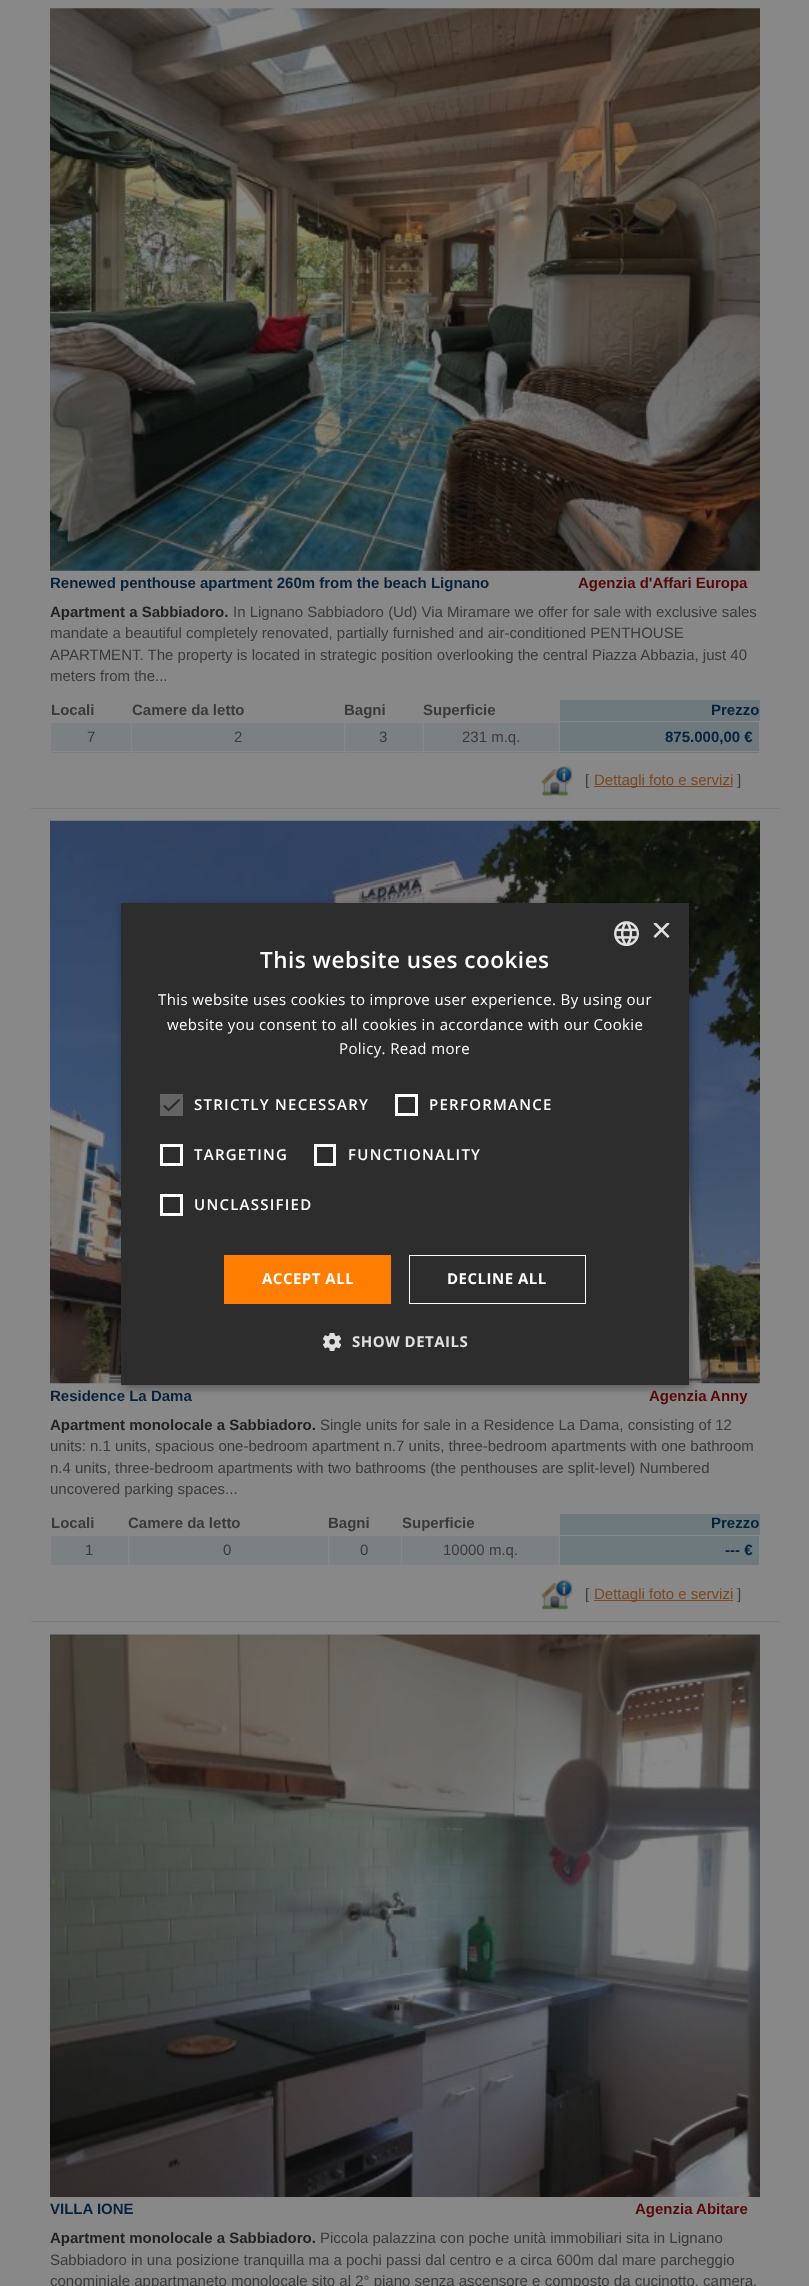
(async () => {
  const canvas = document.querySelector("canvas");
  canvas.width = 809;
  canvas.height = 2286;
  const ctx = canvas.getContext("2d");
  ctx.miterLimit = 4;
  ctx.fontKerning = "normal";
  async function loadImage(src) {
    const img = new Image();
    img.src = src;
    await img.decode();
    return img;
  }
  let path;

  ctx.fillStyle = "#888888";
  ctx.fillRect(0, 0, 809, 2286);
  ctx.fillStyle = "#7a7a7a";
  ctx.fillRect(31, 808, 748, 1);
  ctx.drawImage(await loadImage("img/1.png"), 50, 8, 710, 563);
  for (const [x, y, w, h, color] of [
    [560, 700, 200, 23, "#6d797c"],
    [51, 723, 293, 30, "#7b8182"],
    [345, 723, 78, 30, "#7b8182"],
    [424, 723, 135, 30, "#7b8182"],
    [560, 723, 199, 30, "#6d797c"],
    [131, 751, 629, 1, "#888888"],
    [131, 721, 1, 32, "#888888"],
    [50, 751, 83, 1, "#888888"],
    [559, 721, 201, 1, "#888888"],
    [759, 721, 1, 2, "#888888"],
  ]) {
    ctx.fillStyle = color;
    ctx.fillRect(x, y, w, h);
  }
  ctx.drawImage(await loadImage("img/2.png"), 541, 766, 32, 30);
  ctx.fillStyle = "#7c4720";
  ctx.fillRect(594, 786, 139, 1);
  ctx.fillStyle = "#7a7a7a";
  ctx.fillRect(31, 1621, 748, 1);
  ctx.drawImage(await loadImage("img/3.png"), 50, 820, 710, 564);
  for (const [x, y, w, h, color] of [
    [560, 1514, 200, 21, "#6d797c"],
    [51, 1536, 77, 29, "#7b8182"],
    [129, 1536, 199, 29, "#7b8182"],
    [329, 1536, 72, 29, "#7b8182"],
    [402, 1536, 157, 29, "#7b8182"],
    [560, 1536, 199, 29, "#6d797c"],
  ]) {
    ctx.fillStyle = color;
    ctx.fillRect(x, y, w, h);
  }
  ctx.drawImage(await loadImage("img/4.png"), 541, 1579, 32, 31);
  ctx.fillStyle = "#7c4720";
  ctx.fillRect(594, 1600, 139, 1);
  ctx.drawImage(await loadImage("img/5.png"), 50, 1634, 710, 563);
  ctx.fillStyle = "rgba(0, 0, 0, 0.35)";
  ctx.filter = "blur(5px)";
  ctx.beginPath();
  ctx.rect(123, 905, 567, 483);
  ctx.fill();
  ctx.filter = "none";
  ctx.fillStyle = "#2d2d2d";
  ctx.fillRect(121, 903, 568, 482);
  ctx.drawImage(await loadImage("img/6.png"), 614, 921, 25, 25);
  ctx.fillStyle = "#646464";
  ctx.fillRect(160, 1094, 23, 22);
  path = new Path2D("M164 1105.5L168.5 1110L179.5 1099.5");
  ctx.strokeStyle = "#2d2d2d";
  ctx.lineWidth = 2.3;
  ctx.stroke(path);
  ctx.strokeStyle = "#ffffff";
  ctx.lineWidth = 3;
  ctx.strokeRect(396.5, 1095.5, 20, 19);
  ctx.strokeRect(161.5, 1145.5, 20, 19);
  ctx.strokeRect(315.5, 1145.5, 19, 19);
  ctx.strokeRect(161.5, 1195.5, 20, 19);
  ctx.fillStyle = "#ff7d00";
  ctx.fillRect(224, 1255, 167, 49);
  ctx.lineWidth = 1;
  ctx.strokeRect(409.5, 1255.5, 176, 48);
  ctx.drawImage(await loadImage("img/7.png"), 323, 1333, 18, 18);
  ctx.font = "bold 15px Liberation Sans";
  ctx.fillStyle = "#09223c";
  ctx.fillText("Renewed penthouse apartment 260m from the beach Lignano", 50, 588);
  ctx.fillStyle = "#550909";
  ctx.fillText("Agenzia d'Affari Europa", 578, 588);
  ctx.fillStyle = "#222222";
  ctx.fillText("Apartment a Sabbiadoro.", 50, 617);
  ctx.font = "15px Liberation Sans";
  ctx.fillStyle = "#3a3a3a";
  for (const [text, x, y] of [
    ["In Lignano Sabbiadoro (Ud) Via Miramare we offer for sale with exclusive sales", 233, 617],
    ["mandate a beautiful completely renovated, partially furnished and air-conditioned PENTHOUSE", 50, 638],
    ["APARTMENT. The property is located in strategic position overlooking the central Piazza Abbazia, just 40", 50, 660],
    ["meters from the...", 50, 681],
  ]) {
    ctx.fillText(text, x, y);
  }
  ctx.font = "bold 15px Liberation Sans";
  for (const [text, x, y] of [
    ["Locali", 51, 715],
    ["Camere da letto", 132, 715],
    ["Bagni", 344, 715],
    ["Superficie", 423, 715],
  ]) {
    ctx.fillText(text, x, y);
  }
  ctx.fillStyle = "#09223c";
  ctx.fillText("Prezzo", 711, 715);
  ctx.font = "15px Liberation Sans";
  ctx.fillStyle = "#3a3a3a";
  for (const [text, x, y] of [
    ["7", 87, 742],
    ["2", 234, 742],
    ["3", 379, 742],
    ["231 m.q.", 462, 742],
  ]) {
    ctx.fillText(text, x, y);
  }
  ctx.font = "bold 15px Liberation Sans";
  ctx.fillStyle = "#09223c";
  ctx.fillText("875.000,00 €", 665, 742);
  ctx.font = "15px Liberation Sans";
  ctx.fillStyle = "#3a3a3a";
  ctx.fillText("[", 585, 785);
  ctx.fillStyle = "#7c4720";
  ctx.fillText("Dettagli foto e servizi", 594, 785);
  ctx.fillStyle = "#3a3a3a";
  ctx.fillText("]", 737, 785);
  ctx.font = "bold 15px Liberation Sans";
  ctx.fillStyle = "#09223c";
  ctx.fillText("Residence La Dama", 50, 1401);
  ctx.fillStyle = "#550909";
  ctx.fillText("Agenzia Anny", 649, 1401);
  ctx.fillStyle = "#222222";
  ctx.fillText("Apartment monolocale a Sabbiadoro.", 50, 1430);
  ctx.font = "15px Liberation Sans";
  ctx.fillStyle = "#3a3a3a";
  for (const [text, x, y] of [
    ["Single units for sale in a Residence La Dama, consisting of 12", 320, 1430],
    ["units: n.1 units, spacious one-bedroom apartment n.7 units, three-bedroom apartments with one bathroom", 50, 1451],
    ["n.4 units, three-bedroom apartments with two bathrooms (the penthouses are split-level) Numbered", 50, 1473],
    ["uncovered parking spaces...", 50, 1494],
  ]) {
    ctx.fillText(text, x, y);
  }
  ctx.font = "bold 15px Liberation Sans";
  for (const [text, x, y] of [
    ["Locali", 51, 1528],
    ["Camere da letto", 128, 1528],
    ["Bagni", 328, 1528],
    ["Superficie", 402, 1528],
  ]) {
    ctx.fillText(text, x, y);
  }
  ctx.fillStyle = "#09223c";
  ctx.fillText("Prezzo", 711, 1528);
  ctx.font = "15px Liberation Sans";
  ctx.fillStyle = "#3a3a3a";
  for (const [text, x, y] of [
    ["1", 85, 1555],
    ["0", 223, 1555],
    ["0", 360, 1555],
    ["10000 m.q.", 443, 1555],
  ]) {
    ctx.fillText(text, x, y);
  }
  ctx.font = "bold 15px Liberation Sans";
  ctx.fillStyle = "#09223c";
  ctx.fillText("--- €", 725, 1555);
  ctx.font = "15px Liberation Sans";
  ctx.fillStyle = "#3a3a3a";
  ctx.fillText("[", 585, 1599);
  ctx.fillStyle = "#7c4720";
  ctx.fillText("Dettagli foto e servizi", 594, 1599);
  ctx.fillStyle = "#3a3a3a";
  ctx.fillText("]", 737, 1599);
  ctx.font = "bold 15px Liberation Sans";
  ctx.fillStyle = "#09223c";
  ctx.fillText("VILLA IONE", 50, 2214);
  ctx.fillStyle = "#550909";
  ctx.fillText("Agenzia Abitare", 635, 2214);
  ctx.fillStyle = "#222222";
  ctx.fillText("Apartment monolocale a Sabbiadoro.", 50, 2243);
  ctx.font = "15px Liberation Sans";
  ctx.fillStyle = "#3a3a3a";
  for (const [text, x, y] of [
    ["Piccola palazzina con poche unità immobiliari sita in Lignano", 320, 2243],
    ["Sabbiadoro in una posizione tranquilla ma a pochi passi dal centro e a circa 600m dal mare parcheggio", 50, 2265],
    ["conominiale appartmaneto monolocale sito al 2° piano senza ascensore e composto da cucinotto, camera,", 50, 2286],
  ]) {
    ctx.fillText(text, x, y);
  }
  ctx.save();
  ctx.beginPath();
  ctx.rect(651, 923, 19, 18);
  ctx.clip();
  ctx.font = "36px Liberation Sans";
  ctx.fillStyle = "#e0e0e0";
  ctx.fillText("×", 651, 942);
  ctx.restore();
  ctx.letterSpacing = "0.5px";
  ctx.font = "600 22.5px Open Sans";
  ctx.fillStyle = "#ffffff";
  ctx.fillText("This website uses cookies", 260, 968);
  ctx.letterSpacing = "0.38px";
  ctx.font = "15px Open Sans";
  for (const [text, x, y] of [
    ["This website uses cookies to improve user experience. By using our", 158, 1005],
    ["website you consent to all cookies in accordance with our Cookie", 167, 1030],
    ["Policy. Read more", 339, 1054],
  ]) {
    ctx.fillText(text, x, y);
  }
  ctx.letterSpacing = "1.25px";
  ctx.font = "600 15px Open Sans";
  for (const [text, x, y] of [
    ["STRICTLY NECESSARY", 194, 1110],
    ["PERFORMANCE", 429, 1110],
    ["TARGETING", 194, 1160],
    ["FUNCTIONALITY", 348, 1160],
    ["UNCLASSIFIED", 194, 1210],
  ]) {
    ctx.fillText(text, x, y);
  }
  ctx.letterSpacing = "0.5px";
  ctx.font = "bold 15px Open Sans";
  ctx.fillText("ACCEPT ALL", 262, 1284);
  ctx.fillText("DECLINE ALL", 447, 1284);
  ctx.fillStyle = "#e0e0e0";
  ctx.fillText("SHOW DETAILS", 352, 1347);
})();
